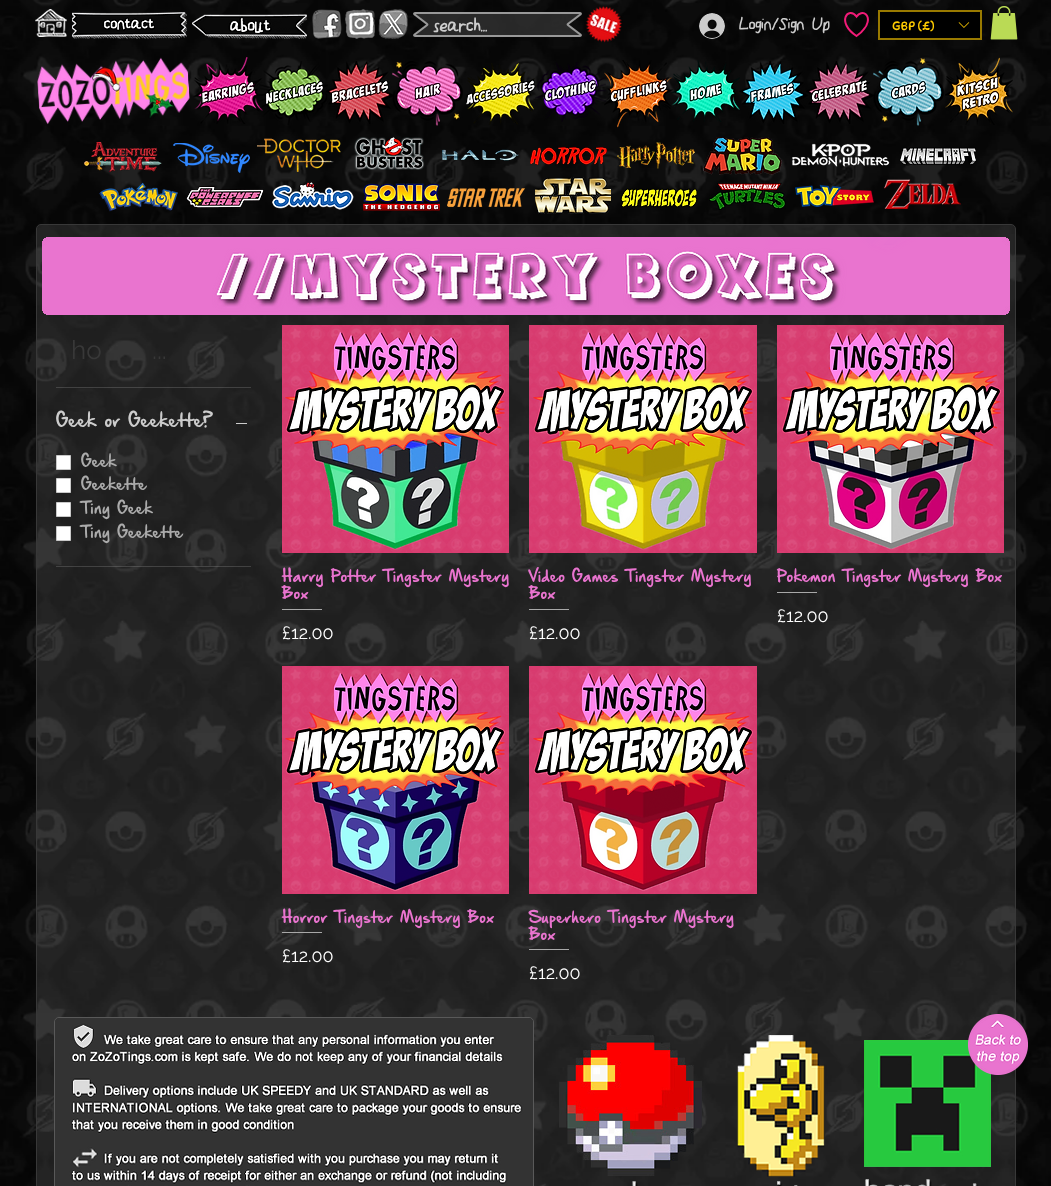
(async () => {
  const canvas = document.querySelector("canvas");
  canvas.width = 1051;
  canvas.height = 1186;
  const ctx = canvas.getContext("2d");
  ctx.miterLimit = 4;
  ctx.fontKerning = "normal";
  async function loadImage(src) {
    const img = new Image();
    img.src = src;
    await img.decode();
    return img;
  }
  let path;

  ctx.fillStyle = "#ffffff";
  ctx.fillRect(0, 0, 1051, 1186);
  ctx.drawImage(await loadImage("img/1.png"), 0, 0, 1051, 1186);
  ctx.drawImage(await loadImage("img/2.png"), 35, 9, 32, 28);
  ctx.drawImage(await loadImage("img/3.png"), 72, 12, 115, 27);
  ctx.drawImage(await loadImage("img/4.png"), 192, 14, 115, 25);
  ctx.drawImage(await loadImage("img/5.png"), 312, 9, 30, 30);
  ctx.drawImage(await loadImage("img/6.png"), 345, 9, 30, 30);
  ctx.drawImage(await loadImage("img/7.png"), 378, 9, 30, 30);
  ctx.drawImage(await loadImage("img/8.png"), 413, 12, 169, 25);
  ctx.drawImage(await loadImage("img/9.png"), 585, 6, 38, 37);
  ctx.drawImage(await loadImage("img/10.png"), 699, 13, 26, 26);
  path = new Path2D("M866 14.5C863 11.5 859 13.5 856.5 16.5C848.5 5.5 835.5 22 856.5 36C859.5 34 862 32 864 29C867 26 870 18.5 866 14.5Z");
  ctx.strokeStyle = "#f21b78";
  ctx.lineWidth = 2;
  ctx.stroke(path);
  ctx.drawImage(await loadImage("img/11.png"), 990, 6, 28, 34);
  ctx.fillStyle = "#000000";
  ctx.beginPath();
  ctx.rect(879, 11, 102, 28);
  ctx.fill();
  ctx.strokeStyle = "#997a00";
  ctx.stroke();
  ctx.drawImage(await loadImage("img/12.png"), 958, 22, 12, 6);
  ctx.drawImage(await loadImage("img/13.png"), 37, 57, 153, 68);
  ctx.drawImage(await loadImage("img/14.png"), 193, 57, 70, 67);
  ctx.drawImage(await loadImage("img/15.png"), 259, 61, 69, 64);
  ctx.drawImage(await loadImage("img/16.png"), 326, 61, 68, 63);
  ctx.drawImage(await loadImage("img/17.png"), 392, 61, 71, 65);
  ctx.drawImage(await loadImage("img/18.png"), 466, 63, 70, 62);
  ctx.drawImage(await loadImage("img/19.png"), 535, 62, 71, 60);
  ctx.drawImage(await loadImage("img/21.png"), 671, 60, 69, 62);
  ctx.drawImage(await loadImage("img/20.png"), 604, 60, 69, 68);
  ctx.drawImage(await loadImage("img/22.png"), 739, 61, 69, 63);
  ctx.drawImage(await loadImage("img/23.png"), 806, 61, 68, 63);
  ctx.drawImage(await loadImage("img/24.png"), 873, 58, 71, 68);
  ctx.drawImage(await loadImage("img/25.png"), 945, 57, 68, 68);
  ctx.drawImage(await loadImage("img/26.png"), 84, 142, 78, 30);
  ctx.drawImage(await loadImage("img/27.png"), 173, 143, 77, 30);
  ctx.drawImage(await loadImage("img/28.png"), 257, 138, 84, 34);
  ctx.drawImage(await loadImage("img/29.png"), 354, 137, 71, 33);
  ctx.drawImage(await loadImage("img/30.png"), 442, 149, 77, 12);
  ctx.drawImage(await loadImage("img/31.png"), 530, 147, 77, 18);
  ctx.drawImage(await loadImage("img/32.png"), 617, 142, 78, 27);
  ctx.drawImage(await loadImage("img/33.png"), 703, 137, 79, 38);
  ctx.drawImage(await loadImage("img/34.png"), 792, 143, 98, 24);
  ctx.drawImage(await loadImage("img/35.png"), 899, 147, 78, 18);
  ctx.drawImage(await loadImage("img/36.png"), 535, 177, 76, 37);
  ctx.drawImage(await loadImage("img/37.png"), 99, 182, 79, 30);
  ctx.drawImage(await loadImage("img/38.png"), 186, 186, 78, 22);
  ctx.drawImage(await loadImage("img/39.png"), 272, 182, 82, 28);
  ctx.drawImage(await loadImage("img/40.png"), 363, 183, 77, 28);
  ctx.drawImage(await loadImage("img/41.png"), 709, 182, 77, 28);
  ctx.drawImage(await loadImage("img/42.png"), 795, 184, 79, 23);
  ctx.drawImage(await loadImage("img/43.png"), 884, 179, 77, 30);
  ctx.drawImage(await loadImage("img/44.png"), 447, 188, 78, 20);
  ctx.drawImage(await loadImage("img/45.png"), 620, 188, 78, 20);
  ctx.fillStyle = "rgba(255, 255, 255, 0.1)";
  ctx.beginPath();
  ctx.roundRect(36.5, 224.5, 979, 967, 4.5);
  ctx.fill();
  ctx.strokeStyle = "#383838";
  ctx.lineWidth = 1;
  ctx.stroke();
  ctx.drawImage(await loadImage("img/46.png"), 42, 237, 968, 78);
  for (const [x, y, w, h, color] of [
    [56, 387, 195, 1, "rgba(204, 204, 204, 0.2)"],
    [56, 566, 195, 1, "rgba(204, 204, 204, 0.2)"],
    [236, 423, 11, 1, "#cccccc"],
  ]) {
    ctx.fillStyle = color;
    ctx.fillRect(x, y, w, h);
  }
  ctx.fillStyle = "#ffffff";
  ctx.beginPath();
  ctx.rect(56.5, 455.5, 14, 14);
  ctx.fill();
  ctx.strokeStyle = "#c9c9c9";
  ctx.stroke();
  ctx.beginPath();
  ctx.rect(56.5, 478.5, 14, 14);
  ctx.fill();
  ctx.stroke();
  ctx.beginPath();
  ctx.rect(56.5, 502.5, 14, 14);
  ctx.fill();
  ctx.stroke();
  ctx.beginPath();
  ctx.rect(56.5, 526.5, 14, 14);
  ctx.fill();
  ctx.stroke();
  ctx.drawImage(await loadImage("img/47.png"), 282, 325, 227, 228);
  ctx.fillStyle = "#a8a8a8";
  ctx.fillRect(282, 609, 40, 1);
  ctx.drawImage(await loadImage("img/48.png"), 529, 325, 228, 228);
  ctx.fillRect(529, 609, 40, 1);
  ctx.drawImage(await loadImage("img/49.png"), 777, 325, 227, 228);
  ctx.fillRect(777, 592, 40, 1);
  ctx.drawImage(await loadImage("img/50.png"), 282, 666, 227, 228);
  ctx.fillRect(282, 932, 40, 1);
  ctx.drawImage(await loadImage("img/51.png"), 529, 666, 228, 228);
  ctx.fillRect(529, 949, 40, 1);
  ctx.beginPath();
  ctx.roundRect(54.5, 1017.5, 479, 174, 4.5);
  ctx.strokeStyle = "#595959";
  ctx.stroke();
  ctx.drawImage(await loadImage("img/52.png"), 55, 1018, 478, 168);
  ctx.drawImage(await loadImage("img/53.png"), 559, 1035, 143, 151);
  ctx.drawImage(await loadImage("img/54.png"), 737, 1035, 88, 151);
  ctx.drawImage(await loadImage("img/55.png"), 864, 1040, 127, 146);
  ctx.drawImage(await loadImage("img/56.png"), 968, 1014, 60, 61);
  ctx.font = "500 19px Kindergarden";
  ctx.fillStyle = "#cccccc";
  ctx.fillText("Login/Sign Up", 739, 30);
  ctx.font = "500 22px Kindergarden";
  ctx.fillText("search...", 433, 32);
  ctx.font = "12px DynaPuff";
  ctx.fillStyle = "#ffcc00";
  ctx.fillText("GBP (£)", 892, 30);
  ctx.font = "26px Raleway";
  ctx.fillStyle = "#383838";
  ctx.fillText("ho", 71, 359);
  ctx.fillText("...", 152, 359);
  ctx.save();
  ctx.beginPath();
  ctx.rect(56, 408, 157, 28);
  ctx.clip();
  ctx.font = "500 16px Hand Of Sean";
  ctx.fillStyle = "#cccccc";
  ctx.fillText("Geek or Geekette?", 56, 427);
  ctx.restore();
  ctx.font = "500 14px Hand Of Sean";
  ctx.fillStyle = "#ababab";
  for (const [text, x, y] of [
    ["Geek", 81, 467],
    ["Geekette", 81, 490],
    ["Tiny Geek", 81, 514],
    ["Tiny Geekette", 81, 538],
  ]) {
    ctx.fillText(text, x, y);
  }
  ctx.fillStyle = "#e974cf";
  ctx.fillText("Harry Potter Tingster Mystery", 282, 582);
  ctx.fillText("Box", 282, 599);
  ctx.font = "18px Raleway";
  ctx.fillStyle = "#ffffff";
  ctx.fillText("£12.00", 282, 639);
  ctx.font = "500 14px Hand Of Sean";
  ctx.fillStyle = "#e974cf";
  ctx.fillText("Video Games Tingster Mystery", 529, 582);
  ctx.fillText("Box", 529, 599);
  ctx.font = "18px Raleway";
  ctx.fillStyle = "#ffffff";
  ctx.fillText("£12.00", 529, 639);
  ctx.font = "500 14px Hand Of Sean";
  ctx.fillStyle = "#e974cf";
  ctx.fillText("Pokemon Tingster Mystery Box", 777, 582);
  ctx.font = "18px Raleway";
  ctx.fillStyle = "#ffffff";
  ctx.fillText("£12.00", 777, 622);
  ctx.font = "500 14px Hand Of Sean";
  ctx.fillStyle = "#e974cf";
  ctx.fillText("Horror Tingster Mystery Box", 282, 923);
  ctx.font = "18px Raleway";
  ctx.fillStyle = "#ffffff";
  ctx.fillText("£12.00", 282, 962);
  ctx.font = "500 14px Hand Of Sean";
  ctx.fillStyle = "#e974cf";
  ctx.fillText("Superhero Tingster Mystery", 529, 923);
  ctx.fillText("Box", 529, 940);
  ctx.font = "18px Raleway";
  ctx.fillStyle = "#ffffff";
  ctx.fillText("£12.00", 529, 979);
})();
